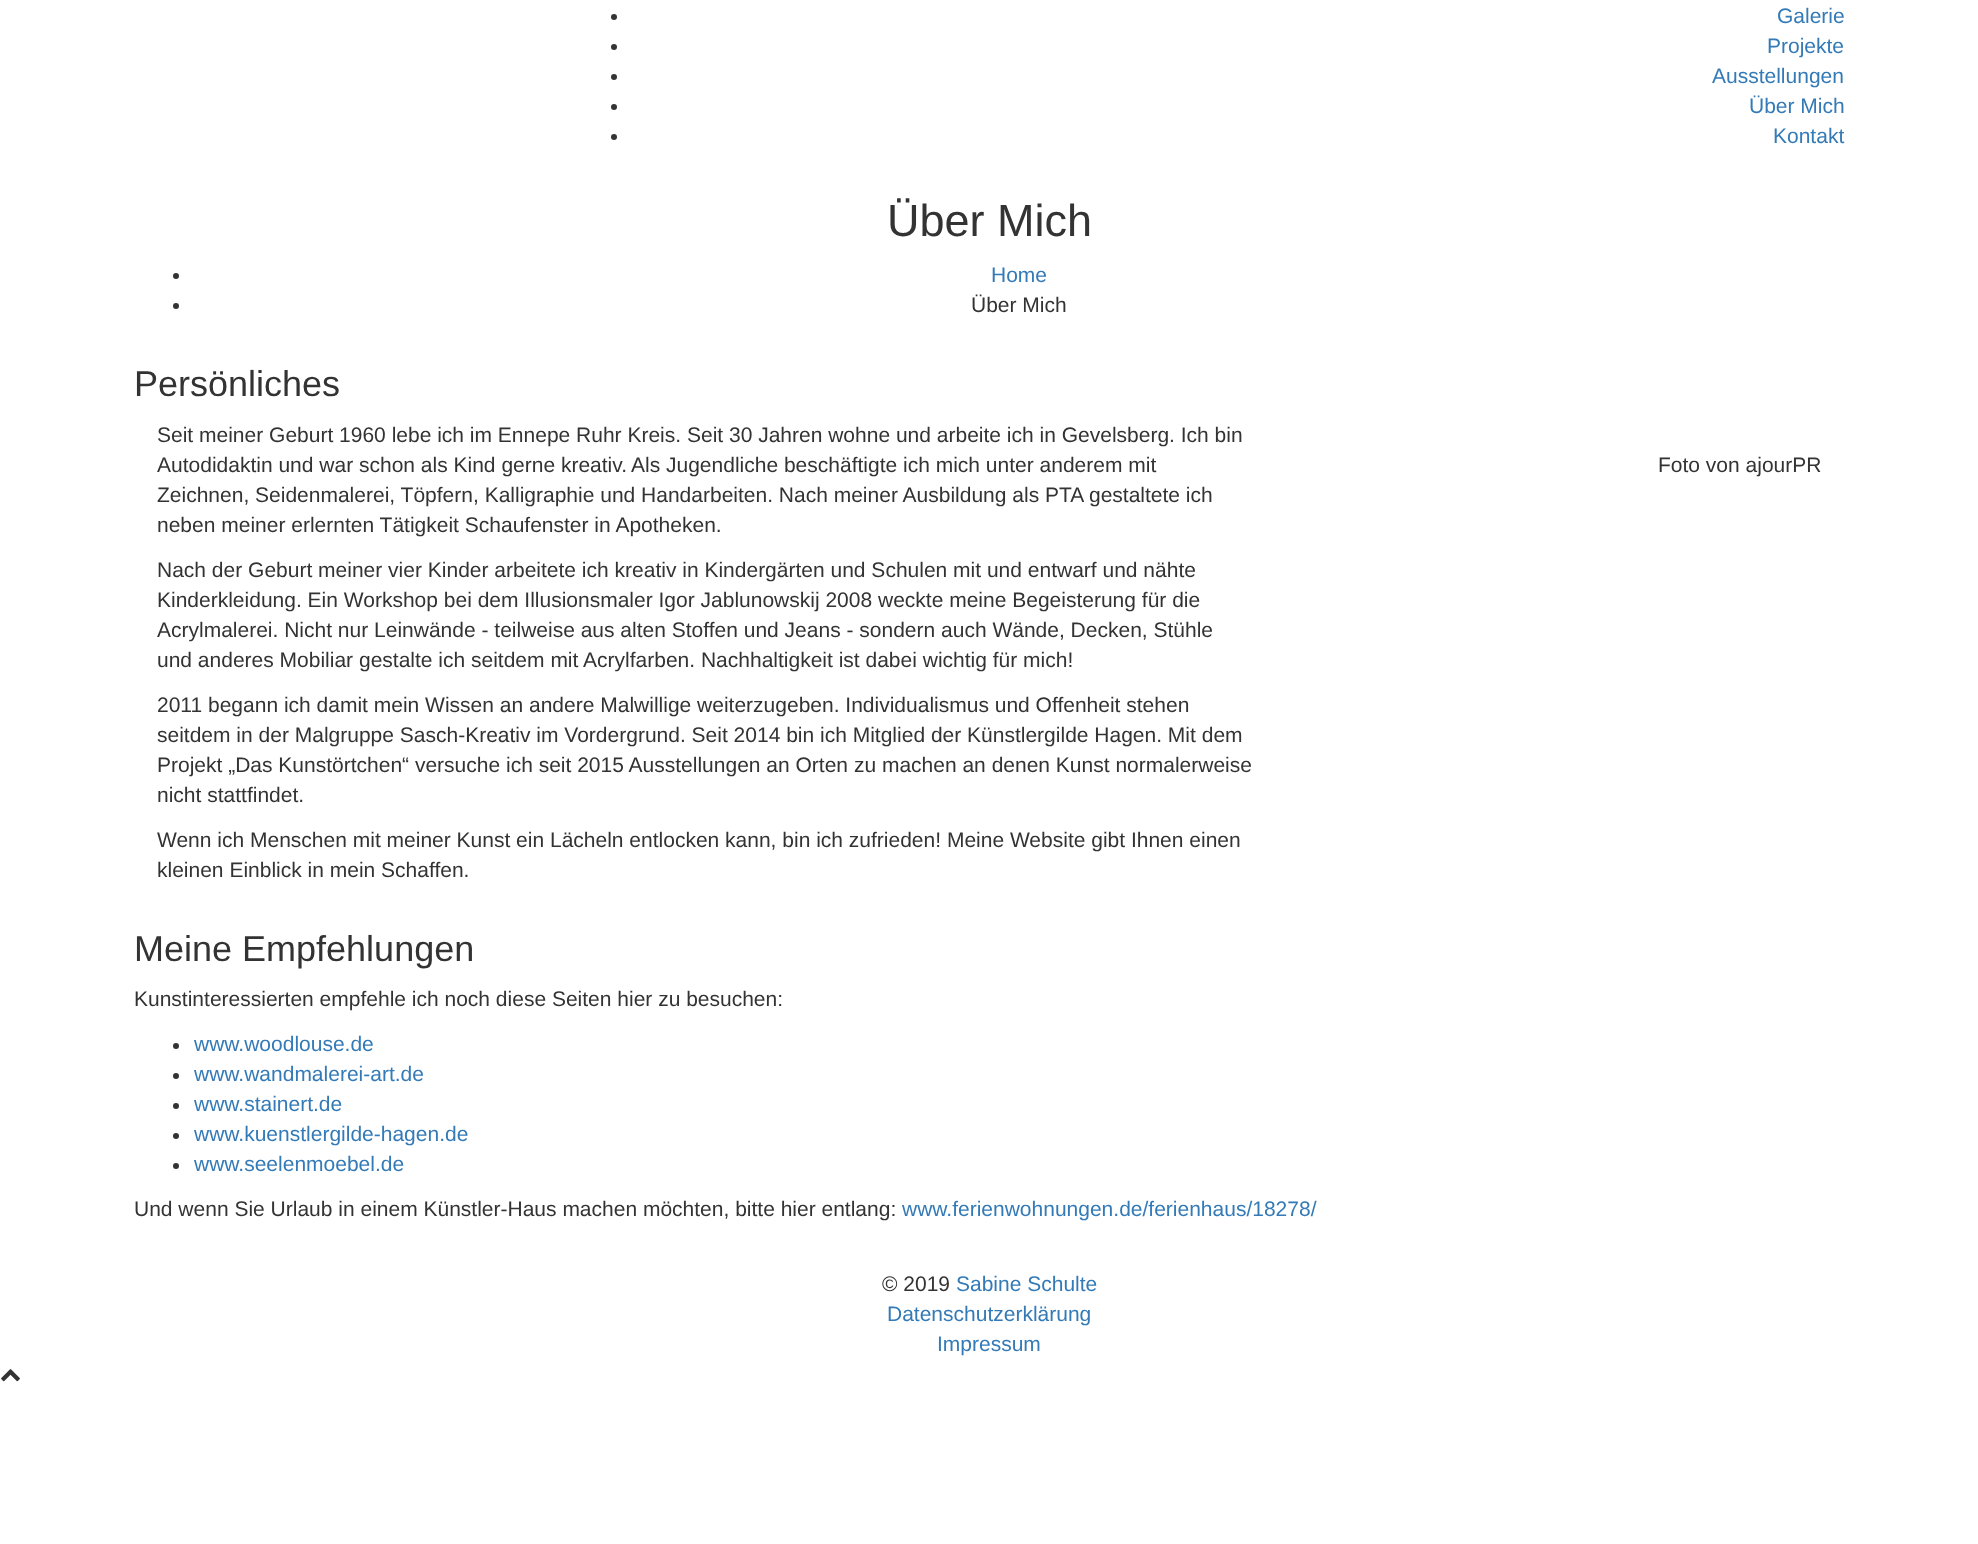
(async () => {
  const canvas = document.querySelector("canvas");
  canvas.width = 1978;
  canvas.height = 1544;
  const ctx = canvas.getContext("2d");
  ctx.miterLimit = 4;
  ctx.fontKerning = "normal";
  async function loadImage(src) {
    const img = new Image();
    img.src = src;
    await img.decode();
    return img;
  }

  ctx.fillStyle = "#ffffff";
  ctx.fillRect(0, 0, 1978, 1544);
  ctx.fillStyle = "#333333";
  ctx.beginPath();
  ctx.arc(614, 17, 3, 0, Math.PI * 2);
  ctx.fill();
  ctx.beginPath();
  ctx.arc(614, 47, 3, 0, Math.PI * 2);
  ctx.fill();
  ctx.beginPath();
  ctx.arc(614, 77, 3, 0, Math.PI * 2);
  ctx.fill();
  ctx.beginPath();
  ctx.arc(614, 107, 3, 0, Math.PI * 2);
  ctx.fill();
  ctx.beginPath();
  ctx.arc(614, 137, 3, 0, Math.PI * 2);
  ctx.fill();
  ctx.beginPath();
  ctx.arc(176, 276, 3, 0, Math.PI * 2);
  ctx.fill();
  ctx.beginPath();
  ctx.arc(176, 306, 3, 0, Math.PI * 2);
  ctx.fill();
  ctx.beginPath();
  ctx.arc(176, 1046, 3, 0, Math.PI * 2);
  ctx.fill();
  ctx.beginPath();
  ctx.arc(176, 1076, 3, 0, Math.PI * 2);
  ctx.fill();
  ctx.beginPath();
  ctx.arc(176, 1106, 3, 0, Math.PI * 2);
  ctx.fill();
  ctx.beginPath();
  ctx.arc(176, 1136, 3, 0, Math.PI * 2);
  ctx.fill();
  ctx.beginPath();
  ctx.arc(176, 1166, 3, 0, Math.PI * 2);
  ctx.fill();
  ctx.drawImage(await loadImage("img/1.png"), 1, 1369, 19, 13);
  ctx.font = "21px Liberation Sans";
  ctx.fillStyle = "#337ab7";
  for (const [text, x, y] of [
    ["Galerie", 1777, 23],
    ["Projekte", 1767, 53],
    ["Ausstellungen", 1712, 83],
    ["Über Mich", 1749, 113],
    ["Kontakt", 1773, 143],
  ]) {
    ctx.fillText(text, x, y);
  }
  ctx.font = "45px Liberation Sans";
  ctx.fillStyle = "#333333";
  ctx.fillText("Über Mich", 887, 236);
  ctx.font = "21px Liberation Sans";
  ctx.fillStyle = "#337ab7";
  ctx.fillText("Home", 991, 282);
  ctx.fillStyle = "#333333";
  ctx.fillText("Über Mich", 971, 312);
  ctx.font = "36px Liberation Sans";
  ctx.fillText("Persönliches", 134, 396);
  ctx.font = "21px Liberation Sans";
  for (const [text, x, y] of [
    ["Seit meiner Geburt 1960 lebe ich im Ennepe Ruhr Kreis. Seit 30 Jahren wohne und arbeite ich in Gevelsberg. Ich bin", 157, 442],
    ["Autodidaktin und war schon als Kind gerne kreativ.", 157, 472],
    ["Als Jugendliche beschäftigte ich mich unter anderem mit", 631, 472],
    ["Zeichnen, Seidenmalerei, Töpfern, Kalligraphie und Handarbeiten. Nach meiner Ausbildung als PTA gestaltete ich", 157, 502],
    ["neben meiner erlernten Tätigkeit Schaufenster in Apotheken.", 157, 532],
    ["Nach der Geburt meiner vier Kinder arbeitete ich kreativ in Kindergärten und Schulen mit und entwarf und nähte", 157, 577],
    ["Kinderkleidung. Ein Workshop bei dem Illusionsmaler Igor Jablunowskij 2008 weckte meine Begeisterung für die", 157, 607],
    ["Acrylmalerei. Nicht nur Leinwände - teilweise aus alten Stoffen und Jeans - sondern auch Wände, Decken, Stühle", 157, 637],
    ["und anderes Mobiliar gestalte ich seitdem mit Acrylfarben. Nachhaltigkeit ist dabei wichtig für mich!", 157, 667],
    ["2011 begann ich damit mein Wissen an andere Malwillige weiterzugeben. Individualismus und Offenheit stehen", 157, 712],
    ["seitdem in der Malgruppe Sasch-Kreativ im Vordergrund. Seit 2014 bin ich Mitglied der Künstlergilde Hagen. Mit dem", 157, 742],
    ["Projekt „Das Kunstörtchen“ versuche ich seit 2015 Ausstellungen an Orten zu machen an denen Kunst normalerweise", 157, 772],
    ["nicht stattfindet.", 157, 802],
    ["Wenn ich Menschen mit meiner Kunst ein Lächeln entlocken kann, bin ich zufrieden! Meine Website gibt Ihnen einen", 157, 847],
    ["kleinen Einblick in mein Schaffen.", 157, 877],
    ["Foto von ajourPR", 1658, 472],
  ]) {
    ctx.fillText(text, x, y);
  }
  ctx.font = "36px Liberation Sans";
  ctx.fillText("Meine Empfehlungen", 134, 961);
  ctx.font = "21px Liberation Sans";
  ctx.fillText("Kunstinteressierten empfehle ich noch diese Seiten hier zu besuchen:", 134, 1006);
  ctx.fillStyle = "#337ab7";
  for (const [text, x, y] of [
    ["www.woodlouse.de", 194, 1051],
    ["www.wandmalerei-art.de", 194, 1081],
    ["www.stainert.de", 194, 1111],
    ["www.kuenstlergilde-hagen.de", 194, 1141],
    ["www.seelenmoebel.de", 194, 1171],
  ]) {
    ctx.fillText(text, x, y);
  }
  ctx.fillStyle = "#333333";
  ctx.fillText("Und wenn Sie Urlaub in einem Künstler-Haus machen möchten, bitte hier entlang:", 134, 1216);
  ctx.fillStyle = "#337ab7";
  ctx.fillText("www.ferienwohnungen.de/ferienhaus/18278/", 902, 1216);
  ctx.fillStyle = "#333333";
  ctx.fillText("© 2019", 882, 1291);
  ctx.fillStyle = "#337ab7";
  for (const [text, x, y] of [
    ["Sabine Schulte", 956, 1291],
    ["Datenschutzerklärung", 887, 1321],
    ["Impressum", 937, 1351],
  ]) {
    ctx.fillText(text, x, y);
  }
})();
